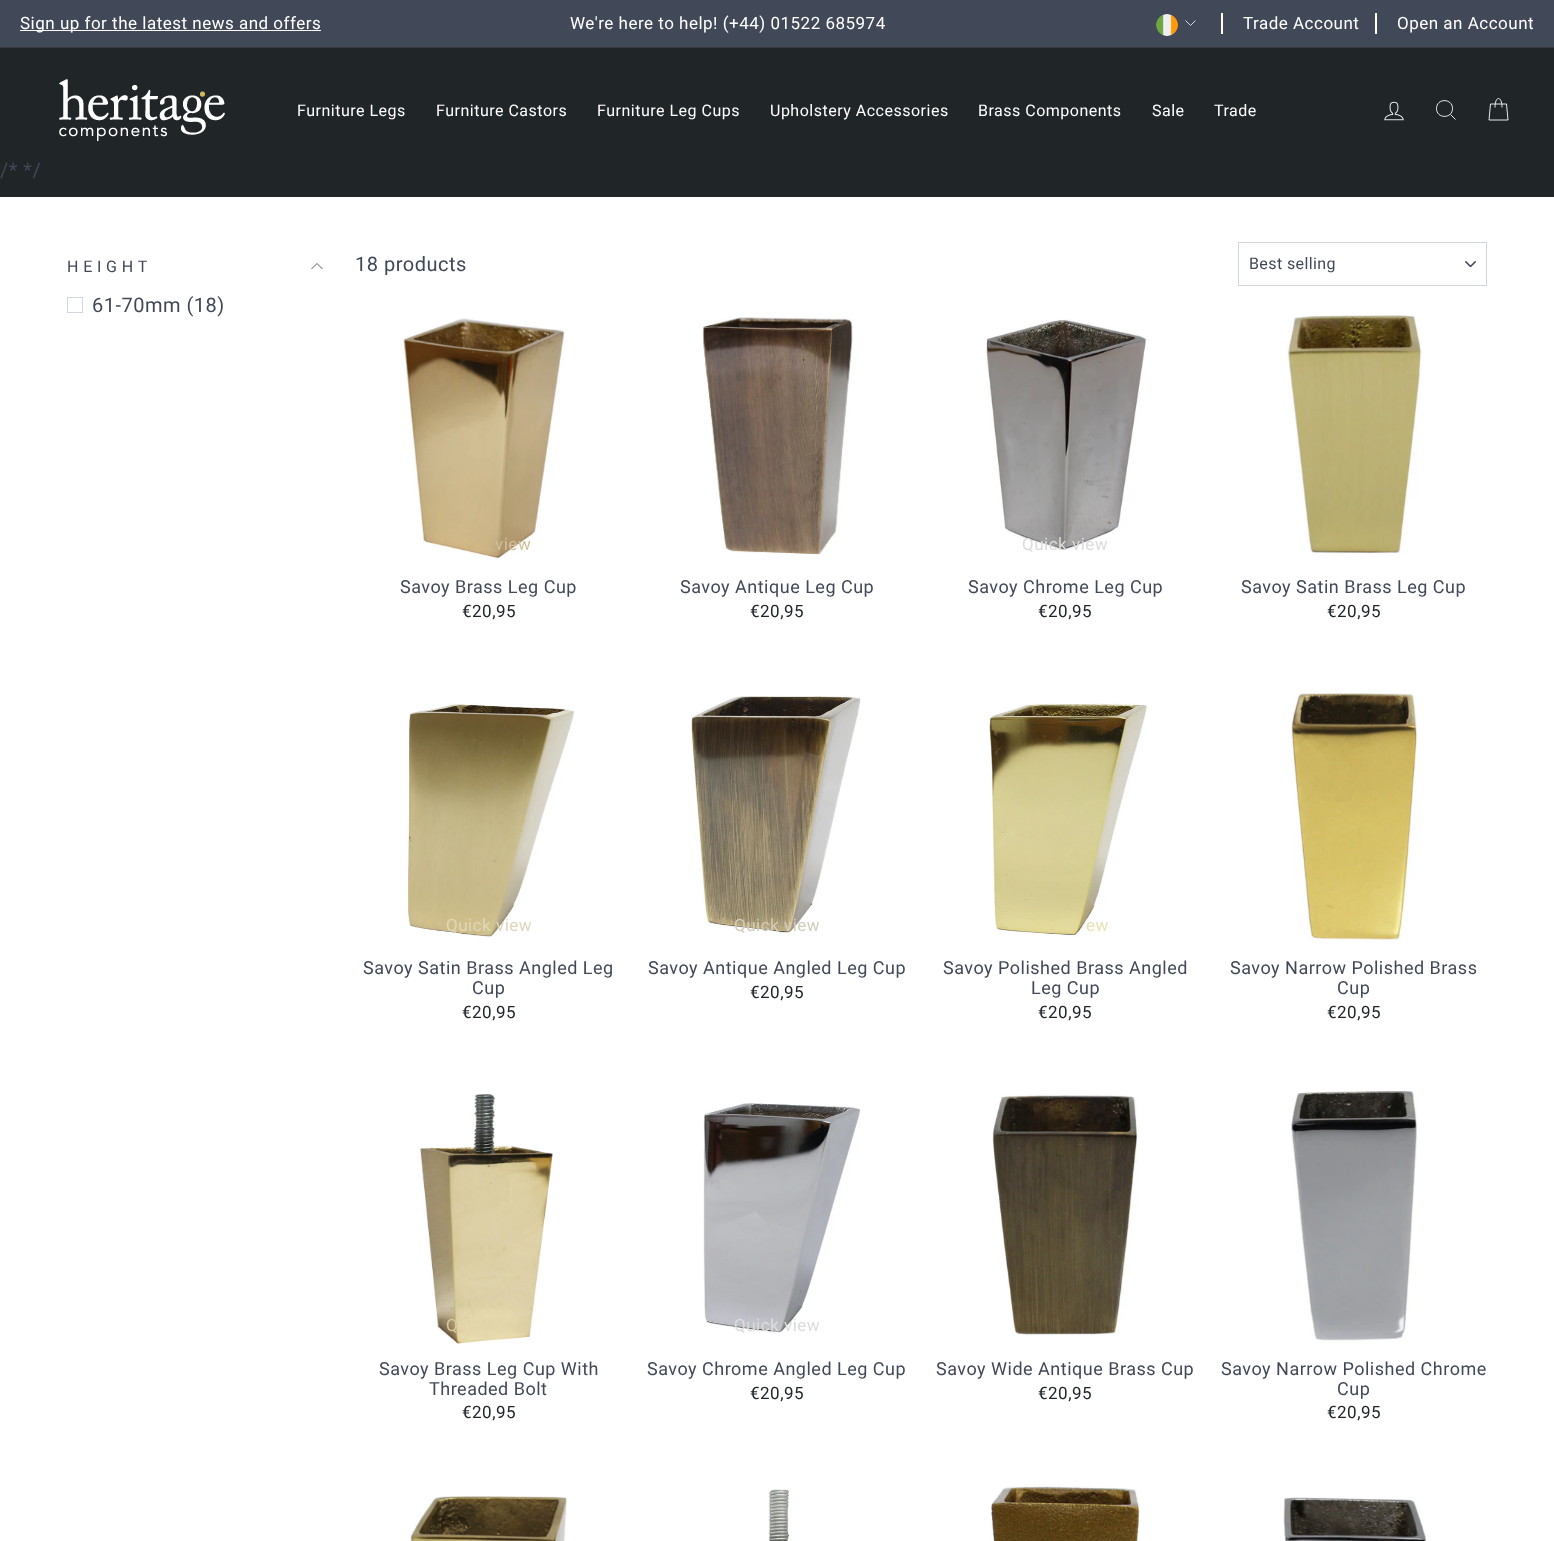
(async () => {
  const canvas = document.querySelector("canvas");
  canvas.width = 1554;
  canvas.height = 1541;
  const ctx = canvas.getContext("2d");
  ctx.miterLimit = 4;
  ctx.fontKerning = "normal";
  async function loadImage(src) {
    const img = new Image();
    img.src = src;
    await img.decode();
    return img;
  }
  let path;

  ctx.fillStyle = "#ffffff";
  ctx.fillRect(0, 0, 1554, 1541);
  ctx.fillStyle = "#414857";
  ctx.fillRect(0, 0, 1554, 47);
  ctx.fillStyle = "#ffffff";
  ctx.fillRect(20, 30, 301, 1);
  ctx.drawImage(await loadImage("img/1.png"), 1156, 14, 22, 22);
  path = new Path2D("M1185.5 20.5L1190.5 25.5L1195.5 20.5");
  ctx.strokeStyle = "#ffffff";
  ctx.lineWidth = 0.8;
  ctx.stroke(path);
  for (const [x, y, w, h, color] of [
    [1221, 13, 2, 21, "#ffffff"],
    [1375, 13, 2, 21, "#ffffff"],
    [0, 48, 1554, 149, "#202528"],
    [0, 47, 1554, 1, "#363b3e"],
  ]) {
    ctx.fillStyle = color;
    ctx.fillRect(x, y, w, h);
  }
  ctx.drawImage(await loadImage("img/2.png"), 59, 79, 166, 62);
  ctx.drawImage(await loadImage("img/3.png"), 1384, 101, 20, 20);
  path = new Path2D("M1452.5 108.5C1452.5 119 1436.5 119 1436.5 108.5C1436.5 98 1452.5 98 1452.5 108.5ZM1455.5 119.5L1450.5 114.5");
  ctx.lineWidth = 0.9;
  ctx.stroke(path);
  path = new Path2D("M1495 107.5C1495 95.5 1502 95.5 1502 107.5M1490.5 104H1506.5L1508 120H1489Z");
  ctx.stroke(path);
  path = new Path2D("M311.5 269L317 263.5L322.5 269");
  ctx.strokeStyle = "#414857";
  ctx.stroke(path);
  ctx.strokeStyle = "#cfd6e0";
  ctx.lineWidth = 1;
  ctx.strokeRect(67.5, 297.5, 15, 15);
  ctx.drawImage(await loadImage("img/4.png"), 1465, 261, 11, 6);
  ctx.strokeRect(1238.5, 242.5, 248, 43);
  ctx.drawImage(await loadImage("img/5.png"), 403, 318, 163, 242);
  ctx.drawImage(await loadImage("img/6.png"), 703, 317, 151, 238);
  ctx.drawImage(await loadImage("img/7.png"), 986, 318, 162, 232);
  ctx.drawImage(await loadImage("img/8.png"), 1285, 315, 138, 239);
  ctx.drawImage(await loadImage("img/9.png"), 407, 703, 169, 235);
  ctx.drawImage(await loadImage("img/10.png"), 691, 695, 170, 238);
  ctx.drawImage(await loadImage("img/11.png"), 989, 703, 158, 234);
  ctx.drawImage(await loadImage("img/12.png"), 1291, 692, 127, 249);
  ctx.drawImage(await loadImage("img/13.png"), 420, 1094, 133, 250);
  ctx.drawImage(await loadImage("img/14.png"), 703, 1103, 158, 230);
  ctx.drawImage(await loadImage("img/15.png"), 992, 1093, 147, 243);
  ctx.drawImage(await loadImage("img/16.png"), 1291, 1090, 127, 252);
  ctx.drawImage(await loadImage("img/17.png"), 409, 1496, 159, 45);
  ctx.drawImage(await loadImage("img/18.png"), 768, 1489, 21, 52);
  ctx.drawImage(await loadImage("img/19.png"), 990, 1486, 150, 55);
  ctx.drawImage(await loadImage("img/20.png"), 1283, 1497, 143, 44);
  ctx.letterSpacing = "0.5px";
  ctx.font = "17px Roboto";
  ctx.fillStyle = "#ffffff";
  for (const [text, x, y] of [
    ["Sign up for the latest news and offers", 20, 29],
    ["We're here to help! (+44) 01522 685974", 570, 29],
    ["Trade Account", 1243, 29],
    ["Open an Account", 1397, 29],
  ]) {
    ctx.fillText(text, x, y);
  }
  ctx.font = "16px Roboto";
  for (const [text, x, y] of [
    ["Furniture Legs", 297, 116],
    ["Furniture Castors", 436, 116],
    ["Furniture Leg Cups", 597, 116],
    ["Upholstery Accessories", 770, 116],
    ["Brass Components", 978, 116],
    ["Sale", 1152, 116],
    ["Trade", 1214, 116],
  ]) {
    ctx.fillText(text, x, y);
  }
  ctx.font = "20px Roboto";
  ctx.fillStyle = "#414857";
  ctx.fillText("/* */", 0, 177);
  ctx.letterSpacing = "4.75px";
  ctx.font = "16px Roboto";
  ctx.fillText("HEIGHT", 67, 272);
  ctx.letterSpacing = "0.5px";
  ctx.font = "20px Roboto";
  ctx.fillText("61-70mm (18)", 92, 312);
  ctx.fillText("18 products", 355, 271);
  ctx.letterSpacing = "0.4px";
  ctx.font = "16px Roboto";
  ctx.fillText("Best selling", 1249, 269);
  ctx.letterSpacing = "0.5px";
  ctx.font = "17px Roboto";
  ctx.fillStyle = "#d2bf9c";
  ctx.fillText("view", 495, 550);
  ctx.font = "18px Roboto";
  ctx.fillStyle = "#414857";
  ctx.fillText("Savoy Brass Leg Cup", 400, 593);
  ctx.font = "17px Roboto";
  ctx.fillStyle = "#202528";
  ctx.fillText("€20,95", 462, 617);
  ctx.font = "18px Roboto";
  ctx.fillStyle = "#414857";
  ctx.fillText("Savoy Antique Leg Cup", 680, 593);
  ctx.font = "17px Roboto";
  ctx.fillStyle = "#202528";
  ctx.fillText("€20,95", 750, 617);
  ctx.fillStyle = "#dcdcdc";
  ctx.fillText("Quick view", 1022, 550);
  ctx.font = "18px Roboto";
  ctx.fillStyle = "#414857";
  ctx.fillText("Savoy Chrome Leg Cup", 968, 593);
  ctx.font = "17px Roboto";
  ctx.fillStyle = "#202528";
  ctx.fillText("€20,95", 1038, 617);
  ctx.font = "18px Roboto";
  ctx.fillStyle = "#414857";
  ctx.fillText("Savoy Satin Brass Leg Cup", 1241, 593);
  ctx.font = "17px Roboto";
  ctx.fillStyle = "#202528";
  ctx.fillText("€20,95", 1327, 617);
  ctx.fillStyle = "#e0d6b8";
  ctx.fillText("Quick view", 446, 931);
  ctx.font = "18px Roboto";
  ctx.fillStyle = "#414857";
  ctx.fillText("Savoy Satin Brass Angled Leg", 363, 974);
  ctx.fillText("Cup", 472, 994);
  ctx.font = "17px Roboto";
  ctx.fillStyle = "#202528";
  ctx.fillText("€20,95", 462, 1018);
  ctx.fillStyle = "#d3ccba";
  ctx.fillText("Quick view", 734, 931);
  ctx.font = "18px Roboto";
  ctx.fillStyle = "#414857";
  ctx.fillText("Savoy Antique Angled Leg Cup", 648, 974);
  ctx.font = "17px Roboto";
  ctx.fillStyle = "#202528";
  ctx.fillText("€20,95", 750, 998);
  ctx.fillStyle = "#e8e2b6";
  ctx.fillText("ew", 1086, 931);
  ctx.font = "18px Roboto";
  ctx.fillStyle = "#414857";
  ctx.fillText("Savoy Polished Brass Angled", 943, 974);
  ctx.fillText("Leg Cup", 1031, 994);
  ctx.font = "17px Roboto";
  ctx.fillStyle = "#202528";
  ctx.fillText("€20,95", 1038, 1018);
  ctx.font = "18px Roboto";
  ctx.fillStyle = "#414857";
  ctx.fillText("Savoy Narrow Polished Brass", 1230, 974);
  ctx.fillText("Cup", 1337, 994);
  ctx.font = "17px Roboto";
  ctx.fillStyle = "#202528";
  ctx.fillText("€20,95", 1327, 1018);
  ctx.fillStyle = "#d6c89d";
  ctx.fillText("Q", 446, 1331);
  ctx.font = "18px Roboto";
  ctx.fillStyle = "#414857";
  ctx.fillText("Savoy Brass Leg Cup With", 379, 1375);
  ctx.fillText("Threaded Bolt", 429, 1395);
  ctx.font = "17px Roboto";
  ctx.fillStyle = "#202528";
  ctx.fillText("€20,95", 462, 1418);
  ctx.fillStyle = "#dcdcdc";
  ctx.fillText("Quick view", 734, 1331);
  ctx.font = "18px Roboto";
  ctx.fillStyle = "#414857";
  ctx.fillText("Savoy Chrome Angled Leg Cup", 647, 1375);
  ctx.font = "17px Roboto";
  ctx.fillStyle = "#202528";
  ctx.fillText("€20,95", 750, 1399);
  ctx.font = "18px Roboto";
  ctx.fillStyle = "#414857";
  ctx.fillText("Savoy Wide Antique Brass Cup", 936, 1375);
  ctx.font = "17px Roboto";
  ctx.fillStyle = "#202528";
  ctx.fillText("€20,95", 1038, 1399);
  ctx.font = "18px Roboto";
  ctx.fillStyle = "#414857";
  ctx.fillText("Savoy Narrow Polished Chrome", 1221, 1375);
  ctx.fillText("Cup", 1337, 1395);
  ctx.font = "17px Roboto";
  ctx.fillStyle = "#202528";
  ctx.fillText("€20,95", 1327, 1418);
})();
